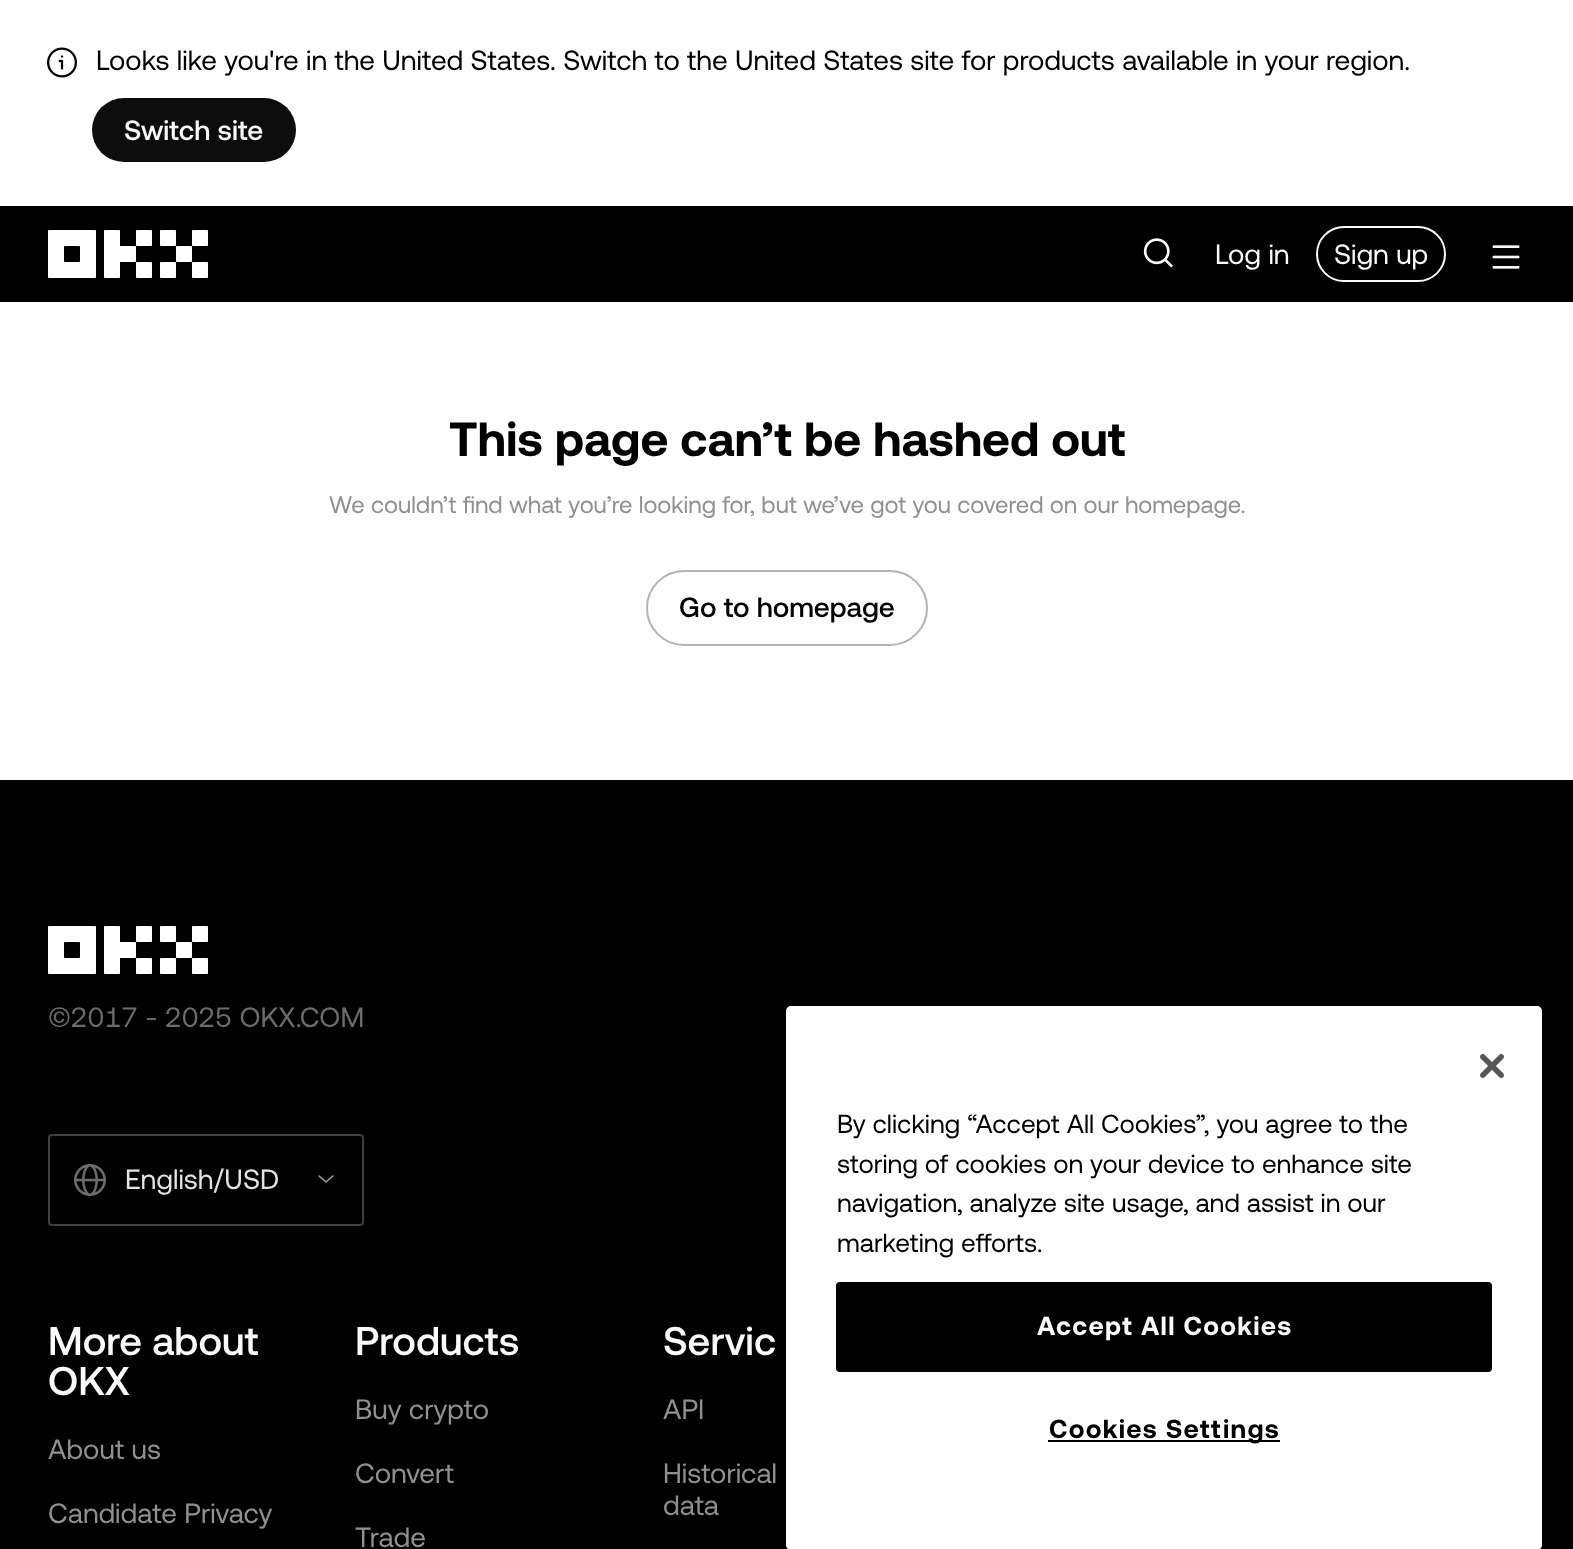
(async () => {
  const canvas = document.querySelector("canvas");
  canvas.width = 1573;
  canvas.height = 1549;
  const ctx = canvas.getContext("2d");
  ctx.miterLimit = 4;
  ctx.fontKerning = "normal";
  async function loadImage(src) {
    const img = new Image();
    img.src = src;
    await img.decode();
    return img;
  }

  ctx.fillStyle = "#ffffff";
  ctx.fillRect(0, 0, 1573, 1549);
  ctx.drawImage(await loadImage("img/1.png"), 47, 47, 30, 31);
  ctx.fillStyle = "#0d0d0d";
  ctx.beginPath();
  ctx.roundRect(92, 98, 204, 64, 32);
  ctx.fill();
  ctx.fillStyle = "#000000";
  ctx.fillRect(0, 206, 1573, 96);
  ctx.drawImage(await loadImage("img/2.png"), 48, 230, 160, 48);
  ctx.drawImage(await loadImage("img/3.png"), 1143, 238, 30, 30);
  ctx.beginPath();
  ctx.roundRect(1317, 227, 128, 54, 27);
  ctx.strokeStyle = "#fafafa";
  ctx.lineWidth = 2;
  ctx.stroke();
  ctx.drawImage(await loadImage("img/4.png"), 1492, 245, 28, 24);
  ctx.beginPath();
  ctx.roundRect(647, 571, 280, 74, 37);
  ctx.strokeStyle = "#b3b3b3";
  ctx.stroke();
  ctx.fillRect(0, 780, 1573, 769);
  ctx.drawImage(await loadImage("img/2.png"), 48, 926, 160, 48);
  ctx.beginPath();
  ctx.roundRect(49, 1135, 314, 90, 3);
  ctx.strokeStyle = "#404040";
  ctx.stroke();
  ctx.drawImage(await loadImage("img/5.png"), 74, 1164, 32, 32);
  ctx.drawImage(await loadImage("img/6.png"), 318, 1175, 16, 8);
  ctx.fillStyle = "rgba(0, 0, 0, 0.2)";
  ctx.filter = "blur(18px)";
  ctx.beginPath();
  ctx.roundRect(786, 1006, 756, 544, 5);
  ctx.fill();
  ctx.filter = "none";
  ctx.fillStyle = "#ffffff";
  ctx.beginPath();
  ctx.roundRect(786, 1006, 756, 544, 5);
  ctx.fill();
  ctx.drawImage(await loadImage("img/7.png"), 1480, 1054, 24, 24);
  ctx.fillStyle = "#000000";
  ctx.beginPath();
  ctx.roundRect(837, 1283, 654, 88, 3);
  ctx.fill();
  ctx.strokeStyle = "#000000";
  ctx.stroke();
  ctx.fillRect(1048, 1440, 232, 2);
  ctx.font = "28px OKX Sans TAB";
  ctx.fillText("Looks like you're in the United States. Switch to the United States site for products available in your region.", 96, 70);
  ctx.font = "500 28px OKX Sans TAB";
  ctx.fillStyle = "#fafafa";
  ctx.fillText("Switch site", 124, 140);
  ctx.font = "28px OKX Sans TAB";
  ctx.fillText("Log in", 1215, 264);
  ctx.fillText("Sign up", 1334, 264);
  ctx.font = "bold 48px OKX Sans TAB";
  ctx.fillStyle = "#000000";
  ctx.fillText("This page can’t be hashed out", 449, 456);
  ctx.font = "24px OKX Sans TAB";
  ctx.fillStyle = "#909090";
  ctx.fillText("We couldn’t find what you’re looking for, but we’ve got you covered on our homepage.", 329, 513);
  ctx.font = "500 28px OKX Sans TAB";
  ctx.fillStyle = "#000000";
  ctx.fillText("Go to homepage", 679, 617);
  ctx.font = "28px OKX Sans TAB";
  ctx.fillStyle = "#6c6c6c";
  ctx.fillText("©2017 - 2025 OKX.COM", 48, 1027);
  ctx.fillStyle = "#e3e3e3";
  ctx.fillText("English/USD", 125, 1189);
  ctx.font = "500 40px OKX Sans TAB";
  ctx.fillStyle = "#fafafa";
  ctx.fillText("More about", 48, 1355);
  ctx.fillText("OKX", 48, 1395);
  ctx.font = "28px OKX Sans TAB";
  ctx.fillStyle = "#909090";
  ctx.fillText("About us", 48, 1459);
  ctx.fillText("Candidate Privacy", 48, 1523);
  ctx.font = "500 40px OKX Sans TAB";
  ctx.fillStyle = "#fafafa";
  ctx.fillText("Products", 355, 1355);
  ctx.font = "28px OKX Sans TAB";
  ctx.fillStyle = "#909090";
  for (const [text, x, y] of [
    ["Buy crypto", 355, 1419],
    ["Convert", 355, 1483],
    ["Trade", 355, 1547],
  ]) {
    ctx.fillText(text, x, y);
  }
  ctx.font = "500 40px OKX Sans TAB";
  ctx.fillStyle = "#fafafa";
  ctx.fillText("Servic", 663, 1355);
  ctx.font = "28px OKX Sans TAB";
  ctx.fillStyle = "#909090";
  for (const [text, x, y] of [
    ["API", 663, 1419],
    ["Historical", 663, 1483],
    ["data", 663, 1515],
  ]) {
    ctx.fillText(text, x, y);
  }
  ctx.font = "26.25px OKX Sans TAB";
  ctx.fillStyle = "#000000";
  for (const [text, x, y] of [
    ["By clicking “Accept All Cookies”, you agree to the", 837, 1133],
    ["storing of cookies on your device to enhance site", 837, 1173],
    ["navigation, analyze site usage, and assist in our", 837, 1212],
    ["marketing efforts.", 837, 1252],
  ]) {
    ctx.fillText(text, x, y);
  }
  ctx.letterSpacing = "1.3px";
  ctx.font = "bold 26.25px OKX Sans TAB";
  ctx.fillStyle = "#fafafa";
  ctx.fillText("Accept All Cookies", 1037, 1335);
  ctx.fillStyle = "#000000";
  ctx.fillText("Cookies Settings", 1049, 1438);
})();
